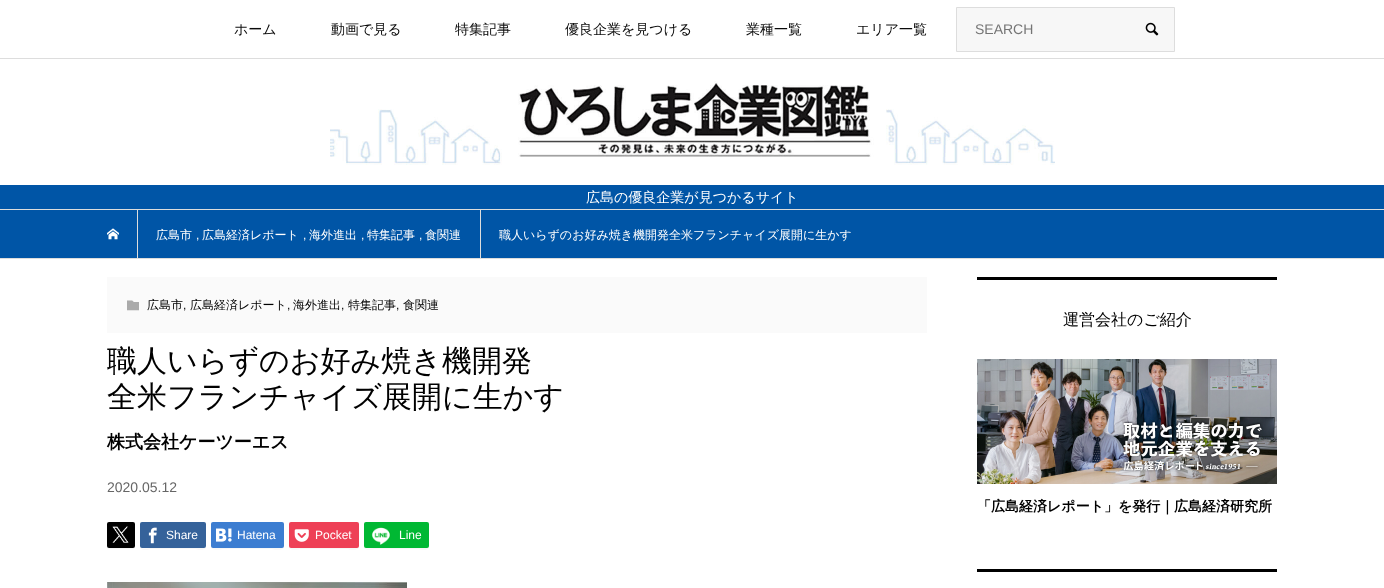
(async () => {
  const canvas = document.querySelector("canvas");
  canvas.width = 1384;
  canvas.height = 588;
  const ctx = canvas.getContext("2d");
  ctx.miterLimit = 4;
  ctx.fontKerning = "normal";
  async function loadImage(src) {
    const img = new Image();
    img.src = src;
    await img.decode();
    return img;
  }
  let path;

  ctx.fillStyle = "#ffffff";
  ctx.fillRect(0, 0, 1384, 588);
  ctx.fillStyle = "#dddddd";
  ctx.fillRect(0, 58, 1384, 1);
  ctx.fillStyle = "#f7f7f7";
  ctx.beginPath();
  ctx.rect(956.5, 7.5, 218, 44);
  ctx.fill();
  ctx.strokeStyle = "#dddddd";
  ctx.stroke();
  ctx.drawImage(await loadImage("img/1.png"), 1145, 22, 14, 14);
  ctx.drawImage(await loadImage("img/2.png"), 330, 81, 725, 84);
  for (const [x, y, w, h, color] of [
    [0, 185, 1384, 24, "#0055a6"],
    [0, 210, 1384, 48, "#0055a6"],
    [0, 209, 1384, 1, "#dddddd"],
    [0, 258, 1384, 1, "#dddddd"],
  ]) {
    ctx.fillStyle = color;
    ctx.fillRect(x, y, w, h);
  }
  ctx.drawImage(await loadImage("img/3.png"), 107, 228, 12, 12);
  for (const [x, y, w, h, color] of [
    [137, 210, 1, 48, "#dddddd"],
    [480, 210, 1, 48, "#dddddd"],
    [107, 277, 820, 56, "#fafafa"],
  ]) {
    ctx.fillStyle = color;
    ctx.fillRect(x, y, w, h);
  }
  ctx.drawImage(await loadImage("img/4.png"), 127, 300, 12, 11);
  ctx.fillStyle = "#f7f7f7";
  path = new Path2D("M107 546C107 550 109.5 549 113 549H129C132.5 549 135 550 135 546C135 547 134 548 133 548H109C108 548 107 547 107 546Z");
  ctx.fill(path);
  ctx.fillStyle = "#000000";
  ctx.beginPath();
  ctx.roundRect(107, 522, 28, 26, 2);
  ctx.fill();
  ctx.drawImage(await loadImage("img/5.png"), 112, 526, 17, 17);
  ctx.fillStyle = "#f7f7f7";
  path = new Path2D("M140 546C140 552 149 549 152 549H194C197 549 206 552 206 546L205 548H152C148 548 140 550 140 546Z");
  ctx.fill(path);
  ctx.fillStyle = "#35629a";
  ctx.beginPath();
  ctx.roundRect(140, 522, 66, 26, 2);
  ctx.fill();
  ctx.drawImage(await loadImage("img/6.png"), 148, 527, 9, 17);
  ctx.fillStyle = "#f7f7f7";
  path = new Path2D("M211 546C211 552 221 549 224 549H270C274 549 284 552 284 546C284 547 283 548 282 548H213C212 548 211 547 211 546Z");
  ctx.fill(path);
  ctx.fillStyle = "#3c7dd1";
  ctx.beginPath();
  ctx.roundRect(211, 522, 73, 26, 2);
  ctx.fill();
  ctx.drawImage(await loadImage("img/7.png"), 216, 528, 16, 14);
  ctx.fillStyle = "#f7f7f7";
  path = new Path2D("M289 546C289 552 298 549 302 549H346C350 549 359 552 359 546C359 547 358 548 357 548H290Z");
  ctx.fill(path);
  ctx.fillStyle = "#ee4056";
  ctx.beginPath();
  ctx.roundRect(289, 522, 70, 26, 2);
  ctx.fill();
  ctx.drawImage(await loadImage("img/8.png"), 294, 529, 15, 13);
  ctx.fillStyle = "#f7f7f7";
  path = new Path2D("M364 546C364 552 372 549 376 549H417C421 549 429 552 429 546L428 548H376C372 548 364 550 364 546Z");
  ctx.fill(path);
  ctx.fillStyle = "#00b833";
  ctx.beginPath();
  ctx.roundRect(364, 522, 65, 26, 2);
  ctx.fill();
  ctx.drawImage(await loadImage("img/9.png"), 371, 527, 20, 18);
  ctx.drawImage(await loadImage("img/10.png"), 107, 582, 300, 6);
  ctx.fillStyle = "#000000";
  ctx.fillRect(977, 277, 300, 3);
  ctx.drawImage(await loadImage("img/11.png"), 977, 359, 300, 125);
  ctx.fillRect(977, 569, 300, 3);
  ctx.font = "500 14px WenQuanYi Zen Hei";
  ctx.fillStyle = "#0a0a0a";
  for (const [text, x, y] of [
    ["ホーム", 234, 34],
    ["動画で見る", 331, 34],
    ["特集記事", 455, 34],
    ["優良企業を見つける", 565, 34],
    ["業種一覧", 746, 34],
    ["エリア一覧", 856, 34],
  ]) {
    ctx.fillText(text, x, y);
  }
  ctx.font = "14px Liberation Sans";
  ctx.fillStyle = "#757575";
  ctx.fillText("SEARCH", 975, 34);
  ctx.font = "500 14px WenQuanYi Zen Hei";
  ctx.fillStyle = "#ffffff";
  ctx.fillText("広島の優良企業が見つかるサイト", 586, 202);
  ctx.font = "500 12px WenQuanYi Zen Hei";
  ctx.fillText("広島市", 156, 239);
  ctx.font = "12px Liberation Sans";
  ctx.fillText(",", 196, 239);
  ctx.font = "500 12px WenQuanYi Zen Hei";
  ctx.fillText("広島経済レポート", 202, 239);
  ctx.font = "12px Liberation Sans";
  ctx.fillText(",", 303, 239);
  ctx.font = "500 12px WenQuanYi Zen Hei";
  ctx.fillText("海外進出", 309, 239);
  ctx.font = "12px Liberation Sans";
  ctx.fillText(",", 361, 239);
  ctx.font = "500 12px WenQuanYi Zen Hei";
  ctx.fillText("特集記事", 367, 239);
  ctx.font = "12px Liberation Sans";
  ctx.fillText(",", 419, 239);
  ctx.font = "500 12px WenQuanYi Zen Hei";
  ctx.fillText("食関連", 425, 239);
  ctx.fillText("職人いらずのお好み焼き機開発全米フランチャイズ展開に生かす", 499, 239);
  ctx.fillStyle = "#000000";
  ctx.fillText("広島市", 147, 309);
  ctx.font = "12px Liberation Sans";
  ctx.fillText(",", 183, 309);
  ctx.font = "500 12px WenQuanYi Zen Hei";
  ctx.fillText("広島経済レポート", 190, 309);
  ctx.font = "12px Liberation Sans";
  ctx.fillText(",", 287, 309);
  ctx.font = "500 12px WenQuanYi Zen Hei";
  ctx.fillText("海外進出", 293, 309);
  ctx.font = "12px Liberation Sans";
  ctx.fillText(",", 341, 309);
  ctx.font = "500 12px WenQuanYi Zen Hei";
  ctx.fillText("特集記事", 348, 309);
  ctx.font = "12px Liberation Sans";
  ctx.fillText(",", 396, 309);
  ctx.font = "500 12px WenQuanYi Zen Hei";
  ctx.fillText("食関連", 403, 309);
  ctx.font = "500 30px WenQuanYi Zen Hei";
  ctx.fillText("職人いらずのお好み焼き機開発", 107, 371);
  ctx.fillText("全米フランチャイズ展開に生かす", 107, 407);
  ctx.font = "bold 18px WenQuanYi Zen Hei";
  ctx.fillText("株式会社ケーツーエス", 107, 448);
  ctx.font = "14px Liberation Sans";
  ctx.fillStyle = "#666666";
  ctx.fillText("2020.05.12", 107, 492);
  ctx.font = "12px Liberation Sans";
  ctx.fillStyle = "#ffffff";
  for (const [text, x, y] of [
    ["Share", 166, 539],
    ["Hatena", 237, 539],
    ["Pocket", 315, 539],
    ["Line", 399, 539],
  ]) {
    ctx.fillText(text, x, y);
  }
  ctx.font = "500 16px WenQuanYi Zen Hei";
  ctx.fillStyle = "#000000";
  ctx.fillText("運営会社のご紹介", 1063, 325);
  ctx.font = "bold 14px WenQuanYi Zen Hei";
  ctx.fillText("「広島経済レポート」を発行｜広島経済研究所", 977, 511);
})();
